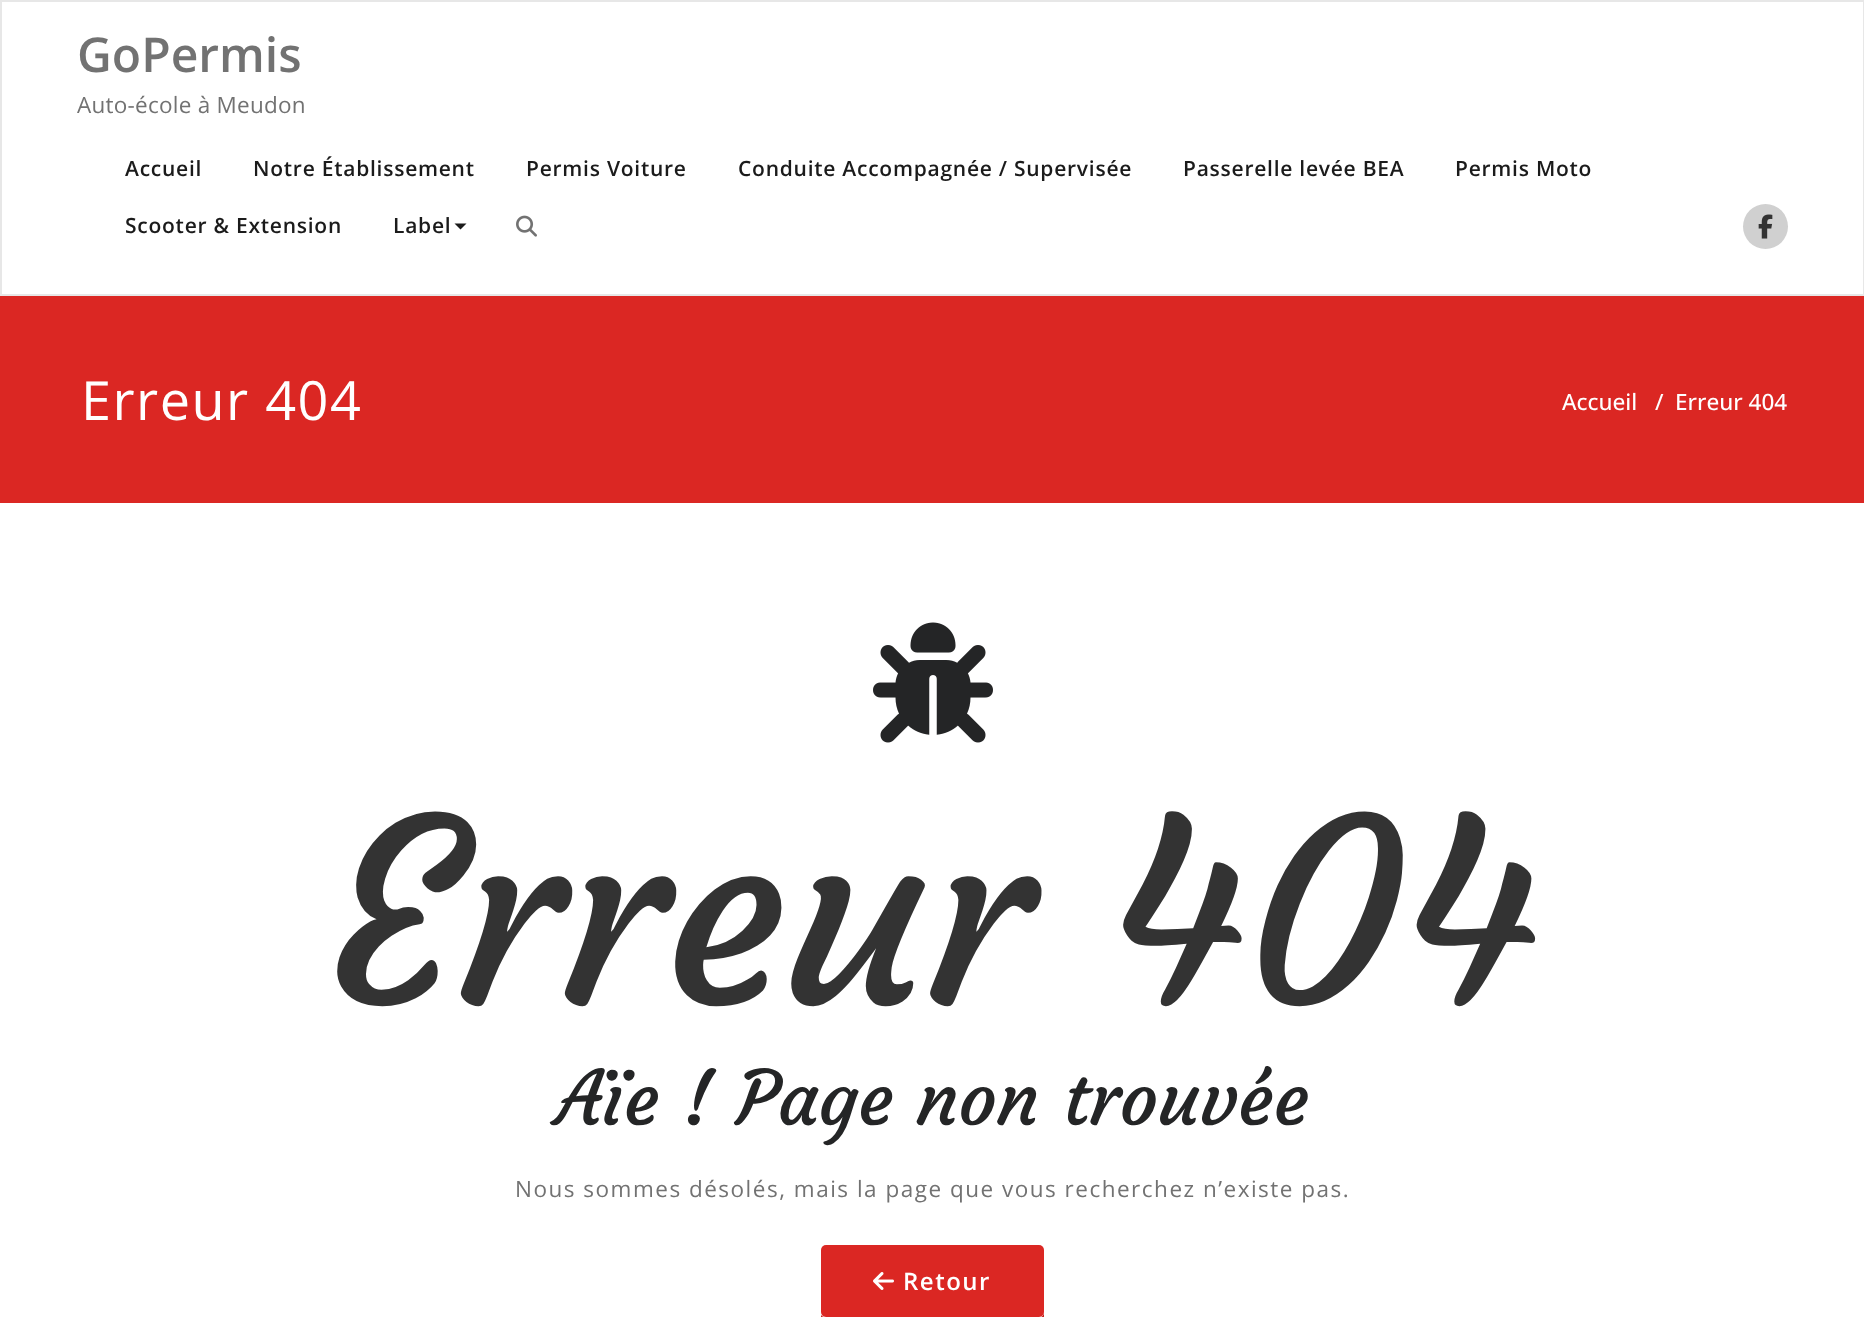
(async () => {
  const canvas = document.querySelector("canvas");
  canvas.width = 1864;
  canvas.height = 1317;
  const ctx = canvas.getContext("2d");
  ctx.miterLimit = 4;
  ctx.fontKerning = "normal";
  async function loadImage(src) {
    const img = new Image();
    img.src = src;
    await img.decode();
    return img;
  }
  let path;

  ctx.fillStyle = "#ffffff";
  ctx.fillRect(0, 0, 1864, 1317);
  ctx.strokeStyle = "#e7e7e7";
  ctx.lineWidth = 2;
  ctx.strokeRect(1, 1, 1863, 294);
  ctx.fillStyle = "#1b1b1b";
  path = new Path2D("M454.5 223.5H466.5L460.5 229.5Z");
  ctx.fill(path);
  ctx.drawImage(await loadImage("img/1.png"), 516, 215, 21, 22);
  ctx.fillStyle = "#d0d0d0";
  ctx.beginPath();
  ctx.arc(1765.5, 226.5, 22.5, 0, Math.PI * 2);
  ctx.fill();
  ctx.drawImage(await loadImage("img/2.png"), 1758, 214, 15, 25);
  ctx.fillStyle = "#db2723";
  ctx.fillRect(0, 296, 1864, 207);
  ctx.drawImage(await loadImage("img/3.png"), 873, 622, 120, 121);
  ctx.fillStyle = "#c8221e";
  path = new Path2D("M821 1315V1317C821 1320 823 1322 826 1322H1039C1042 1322 1044 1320 1044 1317V1312C1044 1315 1042 1317 1040 1317H825C823 1317 822 1316 821 1315Z");
  ctx.fill(path);
  ctx.fillStyle = "#db2723";
  ctx.beginPath();
  ctx.roundRect(821, 1245, 223, 72, 5);
  ctx.fill();
  ctx.drawImage(await loadImage("img/4.png"), 873, 1272, 21, 18);
  ctx.font = "600 48px Open Sans";
  ctx.fillStyle = "#727272";
  ctx.fillText("GoPermis", 77, 72);
  ctx.letterSpacing = "0.25px";
  ctx.font = "22.5px Open Sans";
  ctx.fillText("Auto-école à Meudon", 77, 113);
  ctx.letterSpacing = "0.75px";
  ctx.font = "600 21px Open Sans";
  ctx.fillStyle = "#1b1b1b";
  for (const [text, x, y] of [
    ["Accueil", 125, 176],
    ["Notre Établissement", 253, 176],
    ["Permis Voiture", 526, 176],
    ["Conduite Accompagnée / Supervisée", 738, 176],
    ["Passerelle levée BEA", 1183, 176],
    ["Permis Moto", 1455, 176],
    ["Scooter & Extension", 125, 233],
    ["Label", 393, 233],
  ]) {
    ctx.fillText(text, x, y);
  }
  ctx.letterSpacing = "1.5px";
  ctx.font = "54px Open Sans";
  ctx.fillStyle = "#ffffff";
  ctx.fillText("Erreur 404", 81, 420);
  ctx.letterSpacing = "0px";
  ctx.font = "500 22.5px Open Sans";
  for (const [text, x, y] of [
    ["Accueil", 1562, 410],
    ["/", 1655, 410],
    ["Erreur 404", 1675, 410],
  ]) {
    ctx.fillText(text, x, y);
  }
  ctx.font = "255px Courgette";
  ctx.fillStyle = "#333333";
  ctx.fillText("Erreur 404", 327, 1005);
  ctx.font = "75px Courgette";
  ctx.fillStyle = "#242526";
  ctx.fillText("Aïe ! Page non trouvée", 556, 1125);
  ctx.letterSpacing = "1.5px";
  ctx.font = "22.5px Open Sans";
  ctx.fillStyle = "#727272";
  ctx.fillText("Nous sommes désolés, mais la page que vous recherchez n’existe pas.", 515, 1197);
  ctx.font = "600 24px Open Sans";
  ctx.fillStyle = "#ffffff";
  ctx.fillText("Retour", 903, 1290);
})();
